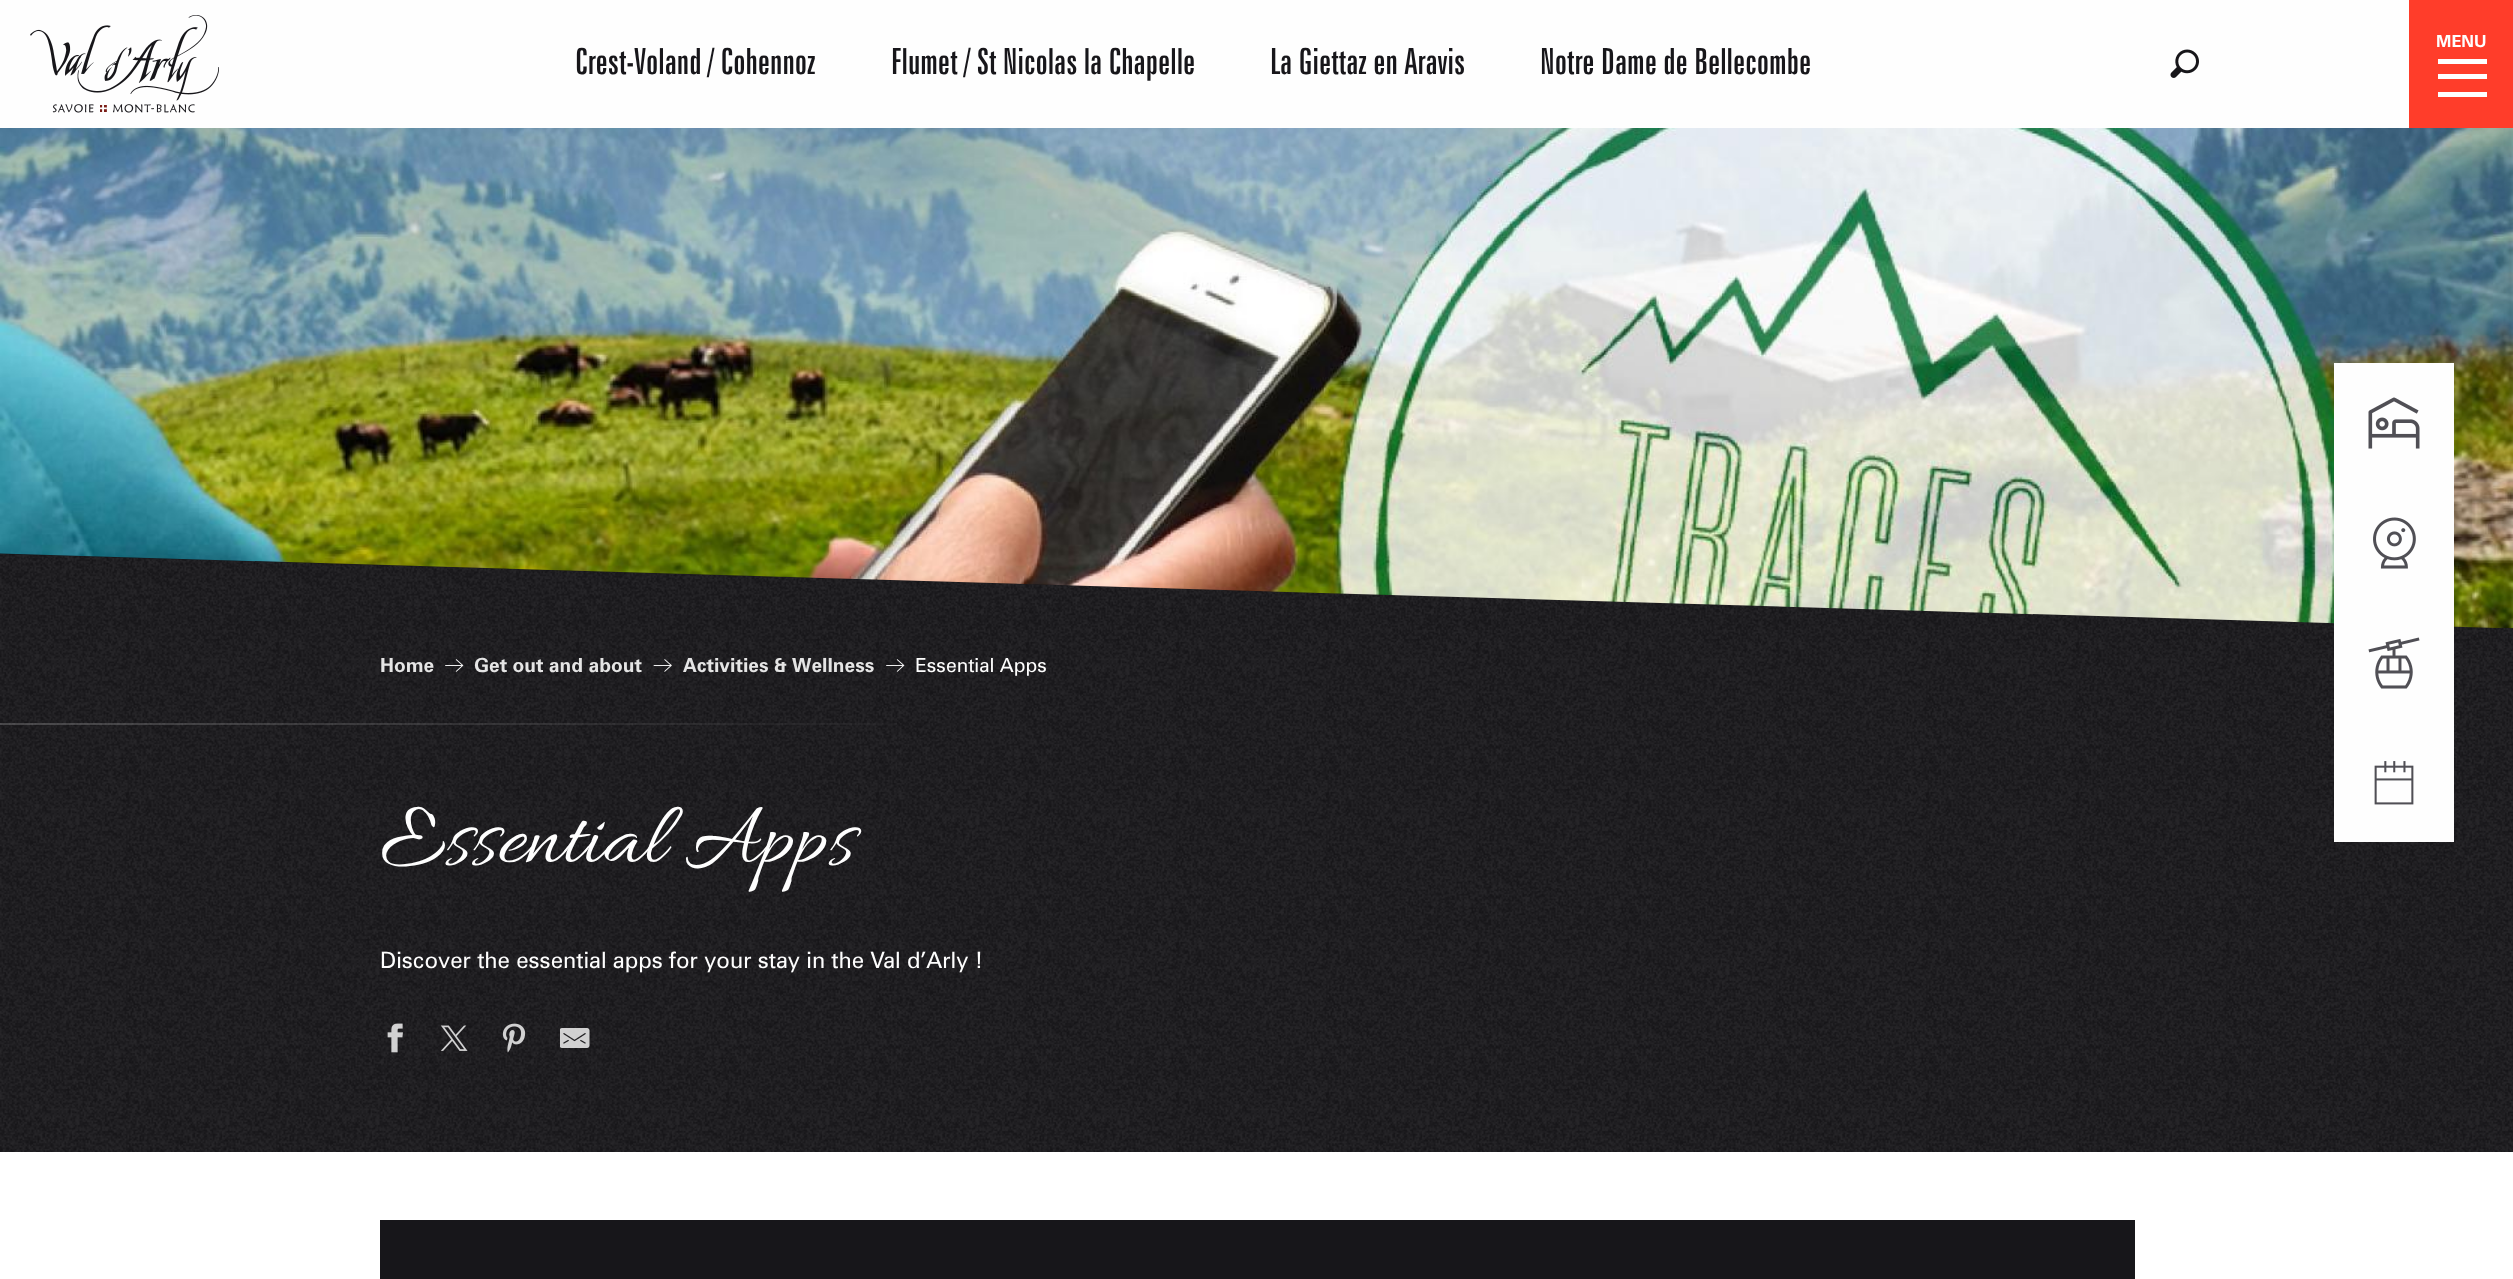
(async () => {
  const canvas = document.querySelector("canvas");
  canvas.width = 2513;
  canvas.height = 1279;
  const ctx = canvas.getContext("2d");
  ctx.miterLimit = 4;
  ctx.fontKerning = "normal";
  async function loadImage(src) {
    const img = new Image();
    img.src = src;
    await img.decode();
    return img;
  }
  let gradient, path;

  ctx.fillStyle = "#ffffff";
  ctx.fillRect(0, 0, 2513, 1279);
  ctx.fillStyle = "#17161a";
  ctx.fillRect(0, 554, 2513, 598);
  ctx.drawImage(await loadImage("img/8.png"), 0, 554, 2513, 598);
  path = new Path2D("M0 0V554L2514 628V0Z");
  ctx.fill(path);
  ctx.fillStyle = "#fefefe";
  ctx.fillRect(0, 0, 2409, 128);
  ctx.drawImage(await loadImage("img/1.png"), 30, 15, 189, 98);
  for (const [x, y, w, h, color] of [
    [2409, 0, 104, 128, "#ff3d2a"],
    [2438, 59, 49, 5, "#fefefe"],
    [2438, 74, 49, 5, "#fefefe"],
    [2438, 92, 49, 5, "#fefefe"],
  ]) {
    ctx.fillStyle = color;
    ctx.fillRect(x, y, w, h);
  }
  ctx.drawImage(await loadImage("img/2.png"), 2170, 49, 29, 29);
  ctx.drawImage(await loadImage("img/7.png"), 0, 128, 2513, 501);
  ctx.fillRect(2334, 363, 120, 479);
  ctx.drawImage(await loadImage("img/3.png"), 2368, 397, 52, 52);
  ctx.drawImage(await loadImage("img/4.png"), 2373, 517, 43, 52);
  ctx.drawImage(await loadImage("img/5.png"), 2368, 637, 52, 52);
  ctx.drawImage(await loadImage("img/6.png"), 2374, 761, 40, 44);
  ctx.drawImage(await loadImage("img/9.png"), 445, 659, 19, 13);
  ctx.drawImage(await loadImage("img/10.png"), 653, 659, 19, 13);
  ctx.drawImage(await loadImage("img/11.png"), 886, 659, 19, 13);
  gradient = ctx.createLinearGradient(0, 724, 1005, 724);
  gradient.addColorStop(0, "rgba(254, 254, 254, 0.2)");
  gradient.addColorStop(1, "rgba(254, 254, 254, 0)");
  ctx.fillStyle = gradient;
  ctx.fillRect(0, 723, 897, 2);
  ctx.drawImage(await loadImage("img/12.png"), 387, 1023, 16, 30);
  ctx.drawImage(await loadImage("img/13.png"), 440, 1025, 28, 26);
  ctx.drawImage(await loadImage("img/14.png"), 502, 1023, 24, 30);
  ctx.drawImage(await loadImage("img/15.png"), 560, 1028, 30, 20);
  ctx.fillStyle = "#17161a";
  ctx.fillRect(380, 1220, 1755, 59);
  ctx.font = "bold 16.5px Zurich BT";
  ctx.fillStyle = "#fefefe";
  ctx.fillText("MENU", 2436, 47);
  ctx.font = "36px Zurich";
  ctx.fillStyle = "#17161a";
  for (const [text, x, y] of [
    ["Crest-Voland / Cohennoz", 575, 74],
    ["Flumet / St Nicolas la Chapelle", 891, 74],
    ["La Giettaz en Aravis", 1270, 74],
    ["Notre Dame de Bellecombe", 1540, 74],
  ]) {
    ctx.fillText(text, x, y);
  }
  ctx.font = "bold 19.5px Zurich BT";
  ctx.fillStyle = "#e5e5e5";
  for (const [text, x, y] of [
    ["Home", 380, 672],
    ["Get out and about", 474, 672],
    ["Activities & Wellness", 683, 672],
  ]) {
    ctx.fillText(text, x, y);
  }
  ctx.font = "19.5px Zurich BT";
  ctx.fillStyle = "#fefefe";
  ctx.fillText("Essential Apps", 915, 672);
  ctx.font = "90px Allura";
  ctx.fillText("Essential Apps", 380, 861);
  ctx.font = "22.5px Zurich BT";
  ctx.fillText("Discover the essential apps for your stay in the Val d’Arly !", 380, 968);
})();
